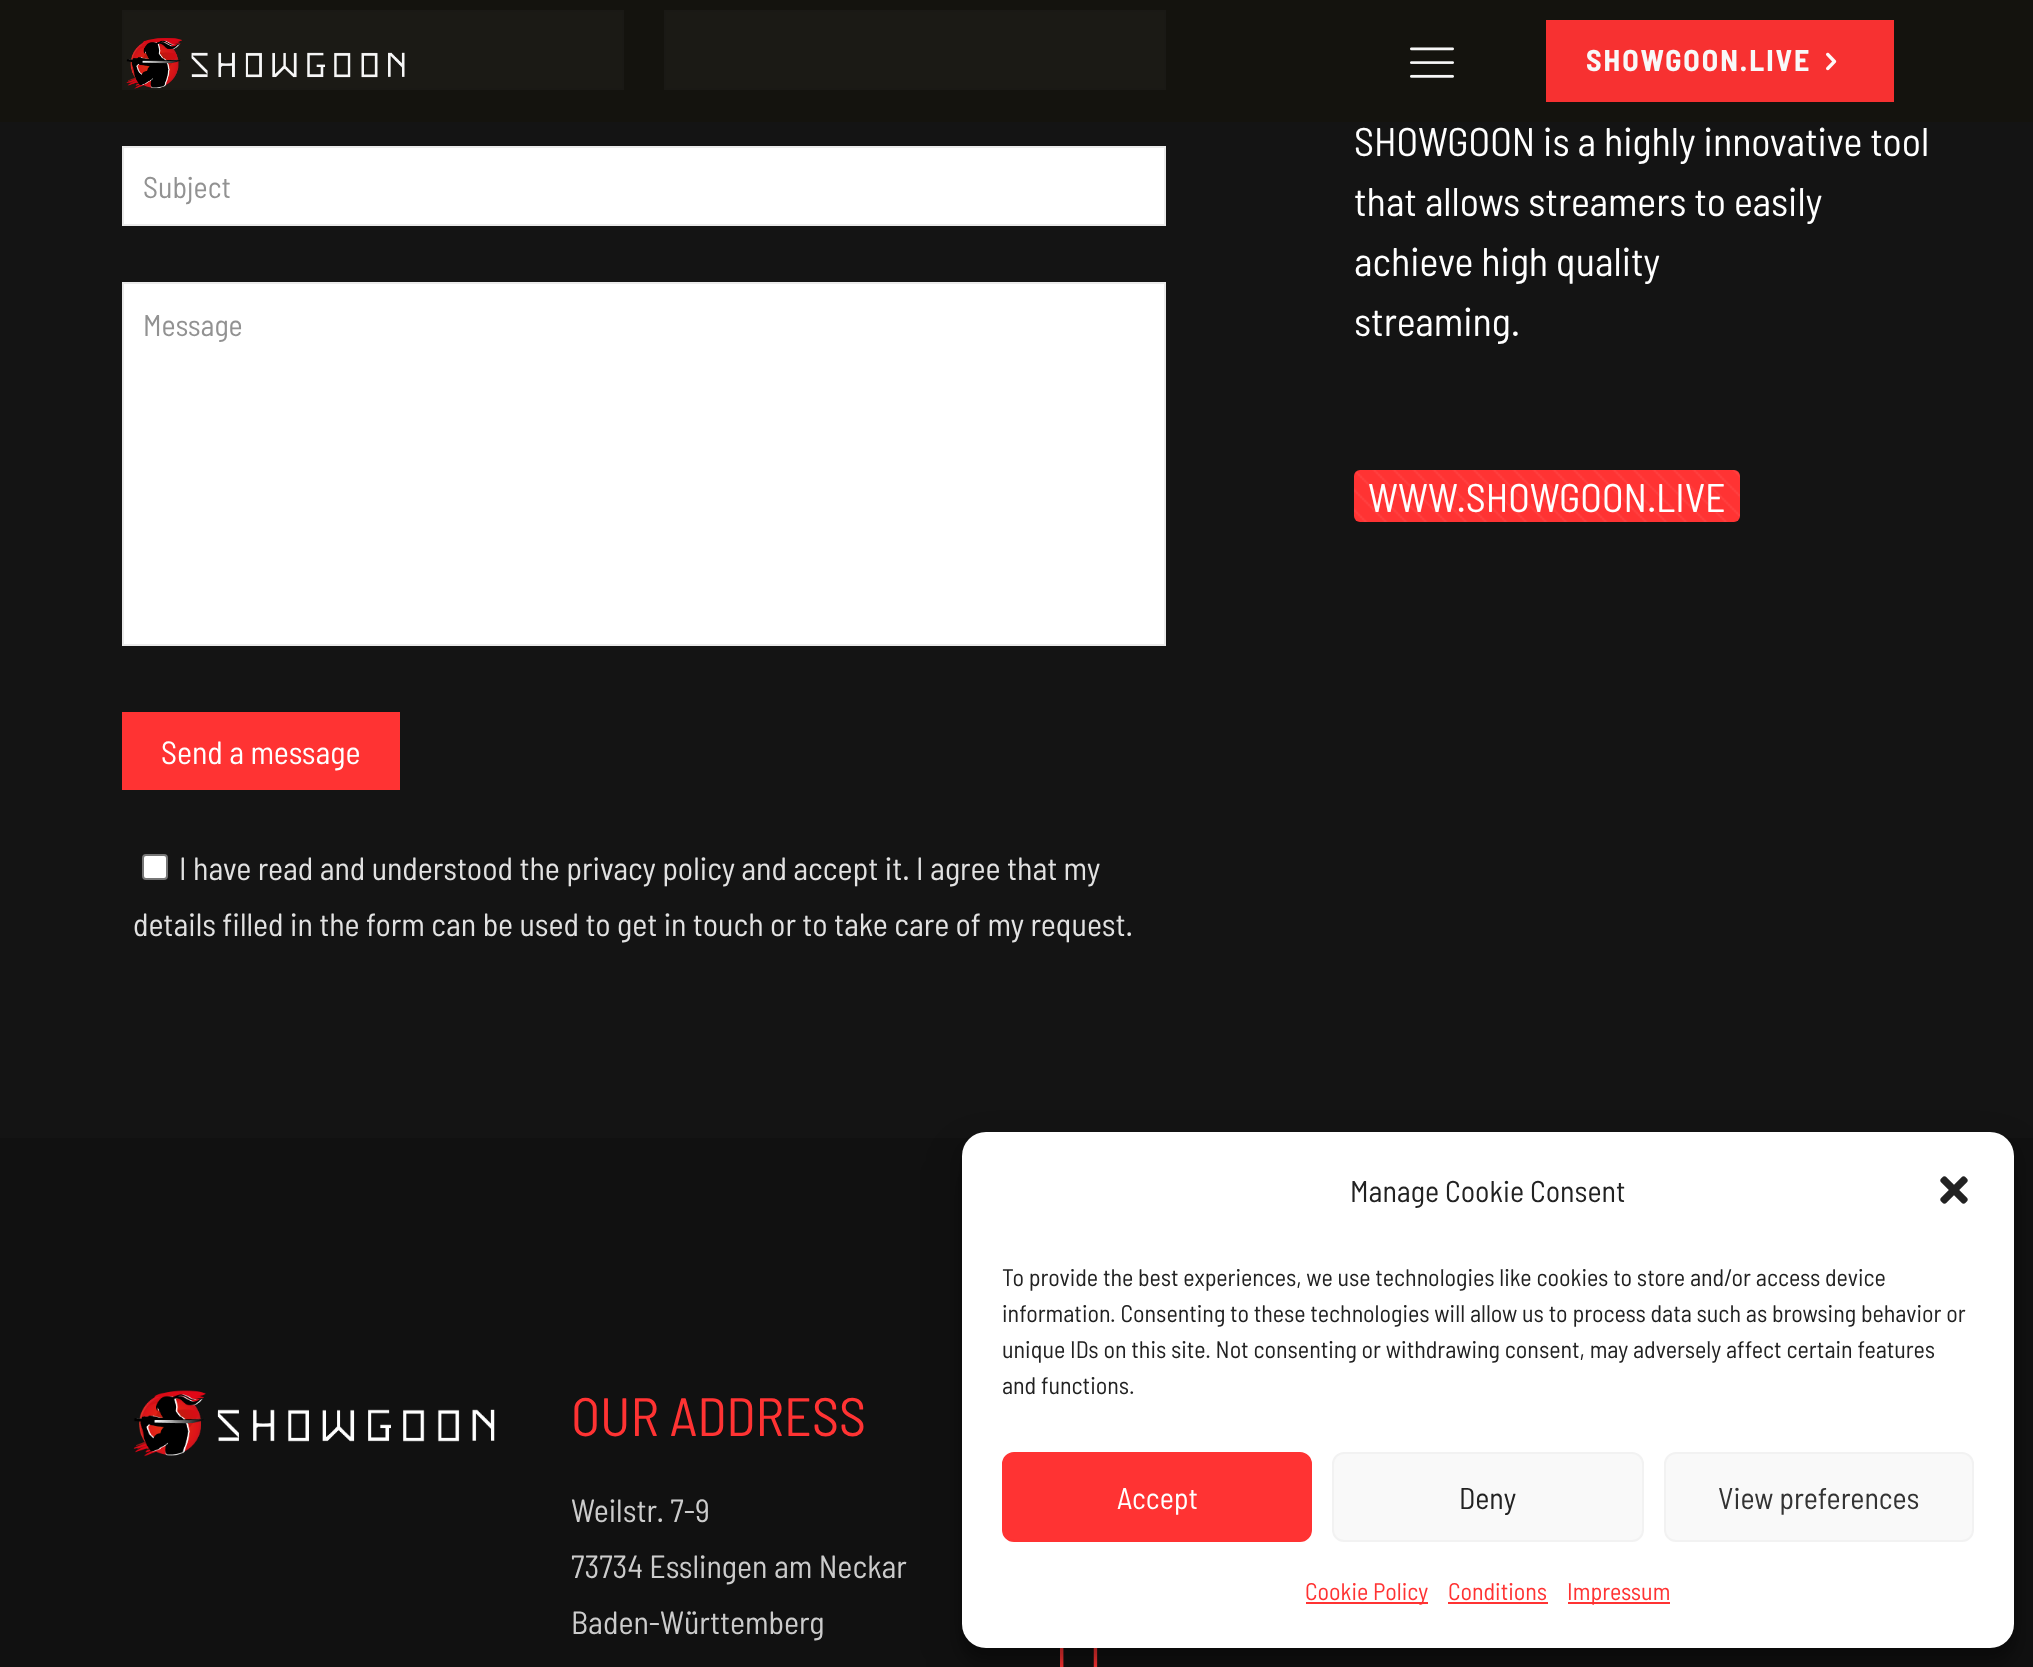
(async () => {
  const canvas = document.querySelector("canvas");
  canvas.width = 2033;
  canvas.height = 1667;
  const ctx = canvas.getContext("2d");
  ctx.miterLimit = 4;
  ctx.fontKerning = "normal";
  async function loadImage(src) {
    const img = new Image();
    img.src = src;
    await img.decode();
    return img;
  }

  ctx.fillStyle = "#141414";
  ctx.fillRect(0, 0, 2033, 1667);
  ctx.fillStyle = "#14130e";
  ctx.fillRect(0, 0, 2033, 122);
  ctx.fillStyle = "#1b1a15";
  ctx.beginPath();
  ctx.rect(123, 11, 500, 78);
  ctx.fill();
  ctx.strokeStyle = "#1a1915";
  ctx.lineWidth = 2;
  ctx.stroke();
  ctx.drawImage(await loadImage("img/1.png"), 126, 38, 279, 51);
  ctx.drawImage(await loadImage("img/2.png"), 1410, 47, 44, 31);
  ctx.fillStyle = "rgba(255, 51, 51, 0.97)";
  ctx.fillRect(1546, 20, 348, 82);
  ctx.drawImage(await loadImage("img/3.png"), 1826, 52, 11, 19);
  ctx.fillStyle = "#1b1a15";
  ctx.beginPath();
  ctx.rect(665, 11, 500, 78);
  ctx.fill();
  ctx.stroke();
  ctx.fillStyle = "#ffffff";
  ctx.beginPath();
  ctx.rect(123, 147, 1042, 78);
  ctx.fill();
  ctx.strokeStyle = "#ebebeb";
  ctx.stroke();
  ctx.beginPath();
  ctx.rect(123, 283, 1042, 362);
  ctx.fill();
  ctx.stroke();
  ctx.fillStyle = "#ff3333";
  ctx.fillRect(122, 712, 278, 78);
  ctx.fillStyle = "#ffffff";
  ctx.beginPath();
  ctx.roundRect(143, 855, 24, 24, 3);
  ctx.fill();
  ctx.strokeStyle = "#767676";
  ctx.stroke();
  ctx.fillStyle = "#ff3333";
  ctx.beginPath();
  ctx.roundRect(1354, 470, 386, 52, 6);
  ctx.fill();
  ctx.drawImage(await loadImage("img/4.png"), 1354, 470, 386, 52);
  ctx.fillStyle = "#111111";
  ctx.fillRect(0, 1138, 2033, 529);
  ctx.drawImage(await loadImage("img/5.png"), 133, 1390, 362, 67);
  ctx.drawImage(await loadImage("img/6.png"), 1060, 1648, 38, 19);
  ctx.fillStyle = "rgba(0, 0, 0, 0.23)";
  ctx.filter = "blur(6px)";
  ctx.beginPath();
  ctx.roundRect(962, 1144, 1052, 516, 24);
  ctx.fill();
  ctx.filter = "none";
  ctx.fillStyle = "rgba(0, 0, 0, 0.19)";
  ctx.filter = "blur(20px)";
  ctx.beginPath();
  ctx.roundRect(962, 1152, 1052, 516, 24);
  ctx.fill();
  ctx.filter = "none";
  ctx.fillStyle = "#ffffff";
  ctx.beginPath();
  ctx.roundRect(962, 1132, 1052, 516, 24);
  ctx.fill();
  ctx.drawImage(await loadImage("img/7.png"), 1940, 1176, 28, 28);
  ctx.fillStyle = "#ff3333";
  ctx.beginPath();
  ctx.roundRect(1003, 1453, 308, 88, 11);
  ctx.fill();
  ctx.strokeStyle = "#ff3333";
  ctx.stroke();
  ctx.fillStyle = "#f9f9f9";
  ctx.beginPath();
  ctx.roundRect(1333, 1453, 310, 88, 11);
  ctx.fill();
  ctx.strokeStyle = "#f2f2f2";
  ctx.stroke();
  ctx.beginPath();
  ctx.roundRect(1665, 1453, 308, 88, 11);
  ctx.fill();
  ctx.stroke();
  for (const [x, y, w, h, color] of [
    [1306, 1602, 122, 2, "#ff3333"],
    [1448, 1602, 100, 2, "#ff3333"],
    [1568, 1602, 102, 2, "#ff3333"],
  ]) {
    ctx.fillStyle = color;
    ctx.fillRect(x, y, w, h);
  }
  ctx.letterSpacing = "2px";
  ctx.font = "bold 30px Barlow Semi Condensed";
  ctx.fillStyle = "#f8f8f8";
  ctx.fillText("SHOWGOON.LIVE", 1586, 71);
  ctx.letterSpacing = "0px";
  ctx.font = "30px Barlow Semi Condensed";
  ctx.fillStyle = "#929292";
  ctx.fillText("Subject", 143, 198);
  ctx.fillText("Message", 143, 336);
  ctx.font = "32px Barlow Semi Condensed";
  ctx.fillStyle = "#ffffff";
  ctx.fillText("Send a message", 161, 764);
  ctx.fillStyle = "#e2e2e2";
  ctx.fillText("I have read and understood the privacy policy and accept it. I agree that my", 179, 880);
  ctx.fillText("details filled in the form can be used to get in touch or to take care of my request.", 133, 936);
  ctx.font = "40px Barlow Semi Condensed";
  ctx.fillStyle = "#ffffff";
  for (const [text, x, y] of [
    ["SHOWGOON is a highly innovative tool", 1354, 156],
    ["that allows streamers to easily", 1354, 216],
    ["achieve high quality", 1354, 276],
    ["streaming.", 1354, 336],
    ["WWW.SHOWGOON.LIVE", 1368, 512],
  ]) {
    ctx.fillText(text, x, y);
  }
  ctx.font = "54px Barlow Semi Condensed";
  ctx.fillStyle = "#ff3333";
  ctx.fillText("OUR ADDRESS", 571, 1436);
  ctx.font = "32px Barlow Semi Condensed";
  ctx.fillStyle = "#cccccc";
  for (const [text, x, y] of [
    ["Weilstr. 7-9", 571, 1522],
    ["73734 Esslingen am Neckar", 571, 1578],
    ["Baden-Württemberg", 571, 1634],
  ]) {
    ctx.fillText(text, x, y);
  }
  ctx.font = "30px Barlow Semi Condensed";
  ctx.fillStyle = "#222222";
  ctx.fillText("Manage Cookie Consent", 1350, 1202);
  ctx.font = "24px Barlow Semi Condensed";
  for (const [text, x, y] of [
    ["To provide the best experiences, we use technologies like cookies to store and/or access device", 1002, 1286],
    ["information. Consenting to these technologies will allow us to process data such as browsing behavior or", 1002, 1322],
    ["unique IDs on this site. Not consenting or withdrawing consent, may adversely affect certain features", 1002, 1358],
    ["and functions.", 1002, 1394],
  ]) {
    ctx.fillText(text, x, y);
  }
  ctx.font = "30px Barlow Semi Condensed";
  ctx.fillStyle = "#ffffff";
  ctx.fillText("Accept", 1117, 1509);
  ctx.fillStyle = "#222222";
  ctx.fillText("Deny", 1459, 1509);
  ctx.fillStyle = "#333333";
  ctx.fillText("View preferences", 1718, 1509);
  ctx.font = "24px Barlow Semi Condensed";
  ctx.fillStyle = "#ff3333";
  for (const [text, x, y] of [
    ["Cookie Policy", 1305, 1600],
    ["Conditions", 1448, 1600],
    ["Impressum", 1567, 1600],
  ]) {
    ctx.fillText(text, x, y);
  }
})();
